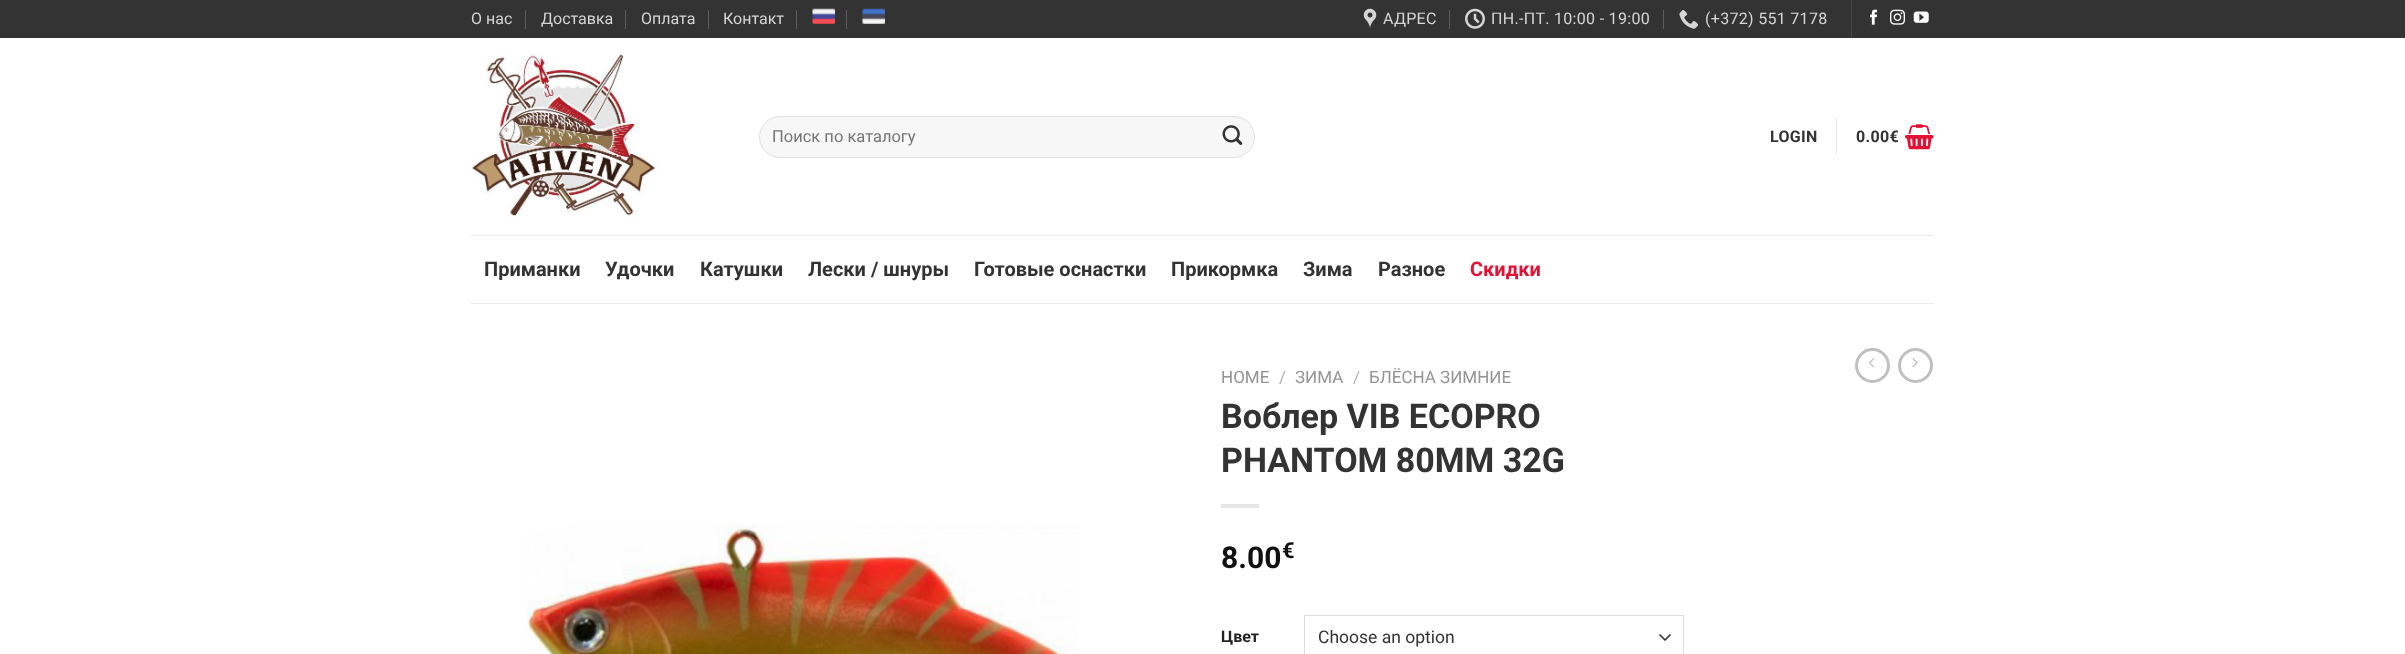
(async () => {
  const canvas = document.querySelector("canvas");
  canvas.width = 2405;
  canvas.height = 654;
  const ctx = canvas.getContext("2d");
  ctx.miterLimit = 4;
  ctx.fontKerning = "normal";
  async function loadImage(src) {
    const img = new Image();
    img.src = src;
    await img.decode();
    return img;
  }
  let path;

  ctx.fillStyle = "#ffffff";
  ctx.fillRect(0, 0, 2405, 654);
  for (const [x, y, w, h, color] of [
    [0, 0, 2405, 38, "#333333"],
    [525, 10, 1, 19, "#5c5c5c"],
    [625, 10, 1, 19, "#5c5c5c"],
    [708, 10, 1, 19, "#5c5c5c"],
    [796, 10, 1, 19, "#5c5c5c"],
  ]) {
    ctx.fillStyle = color;
    ctx.fillRect(x, y, w, h);
  }
  ctx.drawImage(await loadImage("img/1.png"), 812, 8, 23, 16);
  ctx.fillRect(846, 10, 1, 19);
  ctx.drawImage(await loadImage("img/2.png"), 862, 8, 23, 16);
  ctx.drawImage(await loadImage("img/3.png"), 1363, 8, 14, 21);
  ctx.fillRect(1449, 10, 1, 19);
  ctx.drawImage(await loadImage("img/4.png"), 1465, 8, 20, 21);
  ctx.fillRect(1663, 10, 1, 19);
  ctx.drawImage(await loadImage("img/5.png"), 1679, 10, 20, 19);
  ctx.fillStyle = "#474747";
  ctx.fillRect(1851, 0, 1, 38);
  ctx.drawImage(await loadImage("img/6.png"), 1870, 9, 7, 16);
  ctx.drawImage(await loadImage("img/7.png"), 1890, 9, 15, 16);
  ctx.drawImage(await loadImage("img/8.png"), 1913, 11, 16, 12);
  ctx.drawImage(await loadImage("img/9.png"), 471, 51, 187, 167);
  ctx.fillStyle = "#f7f7f7";
  ctx.beginPath();
  ctx.roundRect(759, 116, 496, 42, 21);
  ctx.fill();
  ctx.beginPath();
  ctx.roundRect(759.5, 116.5, 495, 41, 20.5);
  ctx.strokeStyle = "rgba(0, 0, 0, 0.09)";
  ctx.stroke();
  ctx.drawImage(await loadImage("img/10.png"), 1222, 125, 21, 20);
  ctx.fillStyle = "#e6e6e6";
  ctx.fillRect(1836, 118, 1, 37);
  ctx.drawImage(await loadImage("img/11.png"), 1905, 124, 29, 26);
  ctx.fillStyle = "#ebebeb";
  ctx.fillRect(471, 235, 1463, 1);
  ctx.fillRect(471, 303, 1463, 1);
  ctx.drawImage(await loadImage("img/12.png"), 526, 524, 553, 130);
  ctx.fillStyle = "#e6e6e6";
  ctx.fillRect(1221, 504, 38, 4);
  path = new Path2D("M1660 635L1665 640L1670 635");
  ctx.strokeStyle = "#333333";
  ctx.lineWidth = 1.7;
  ctx.lineCap = "round";
  ctx.lineJoin = "round";
  ctx.stroke(path);
  ctx.strokeStyle = "#dddddd";
  ctx.lineWidth = 1;
  ctx.lineJoin = "miter";
  ctx.strokeRect(1304.5, 615.5, 379, 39);
  ctx.beginPath();
  ctx.arc(1872.5, 365.5, 16, 0, Math.PI * 2);
  ctx.strokeStyle = "#c0c0c0";
  ctx.lineWidth = 3;
  ctx.stroke();
  ctx.drawImage(await loadImage("img/13.png"), 1868, 358, 7, 10);
  ctx.beginPath();
  ctx.arc(1915.5, 365.5, 16, 0, Math.PI * 2);
  ctx.stroke();
  ctx.drawImage(await loadImage("img/14.png"), 1912, 358, 6, 10);
  ctx.font = "16px Roboto";
  ctx.fillStyle = "#d6d6d6";
  for (const [text, x, y] of [
    ["О нас", 471, 24],
    ["Доставка", 541, 24],
    ["Оплата", 641, 24],
    ["Контакт", 723, 24],
  ]) {
    ctx.fillText(text, x, y);
  }
  ctx.letterSpacing = "0.3px";
  for (const [text, x, y] of [
    ["АДРЕС", 1383, 24],
    ["ПН.-ПТ. 10:00 - 19:00", 1491, 24],
    ["(+372) 551 7178", 1705, 24],
  ]) {
    ctx.fillText(text, x, y);
  }
  ctx.letterSpacing = "0px";
  ctx.font = "16.5px Roboto";
  ctx.fillStyle = "#757575";
  ctx.fillText("Поиск по каталогу", 772, 142);
  ctx.letterSpacing = "0.3px";
  ctx.font = "bold 16px Roboto";
  ctx.fillStyle = "#333333";
  ctx.fillText("LOGIN", 1770, 142);
  ctx.fillText("0.00€", 1856, 142);
  ctx.letterSpacing = "0px";
  ctx.font = "bold 20px Roboto";
  for (const [text, x, y] of [
    ["Приманки", 484, 276],
    ["Удочки", 605, 276],
    ["Катушки", 700, 276],
    ["Лески / шнуры", 808, 276],
    ["Готовые оснастки", 974, 276],
    ["Прикормка", 1171, 276],
    ["Зима", 1303, 276],
    ["Разное", 1378, 276],
  ]) {
    ctx.fillText(text, x, y);
  }
  ctx.fillStyle = "#e31235";
  ctx.fillText("Скидки", 1470, 276);
  ctx.font = "17px Roboto";
  ctx.fillStyle = "#949494";
  ctx.fillText("HOME", 1221, 383);
  ctx.fillStyle = "#b2b2b2";
  ctx.fillText("/", 1279, 383);
  ctx.fillStyle = "#949494";
  ctx.fillText("ЗИМА", 1295, 383);
  ctx.fillStyle = "#b2b2b2";
  ctx.fillText("/", 1353, 383);
  ctx.fillStyle = "#949494";
  ctx.fillText("БЛЁСНА ЗИМНИЕ", 1369, 383);
  ctx.font = "bold 34px Roboto";
  ctx.fillStyle = "#333333";
  ctx.fillText("Воблер VIB ECOPRO", 1221, 428);
  ctx.fillText("PHANTOM 80MM 32G", 1221, 472);
  ctx.font = "bold 30px Roboto";
  ctx.fillStyle = "#111111";
  ctx.fillText("8.00", 1221, 568);
  ctx.font = "bold 22px Roboto";
  ctx.fillText("€", 1282, 558);
  ctx.font = "bold 16px Roboto";
  ctx.fillStyle = "#222222";
  ctx.fillText("Цвет", 1221, 642);
  ctx.font = "17.5px Roboto";
  ctx.fillStyle = "#333333";
  ctx.fillText("Choose an option", 1318, 643);
})();
